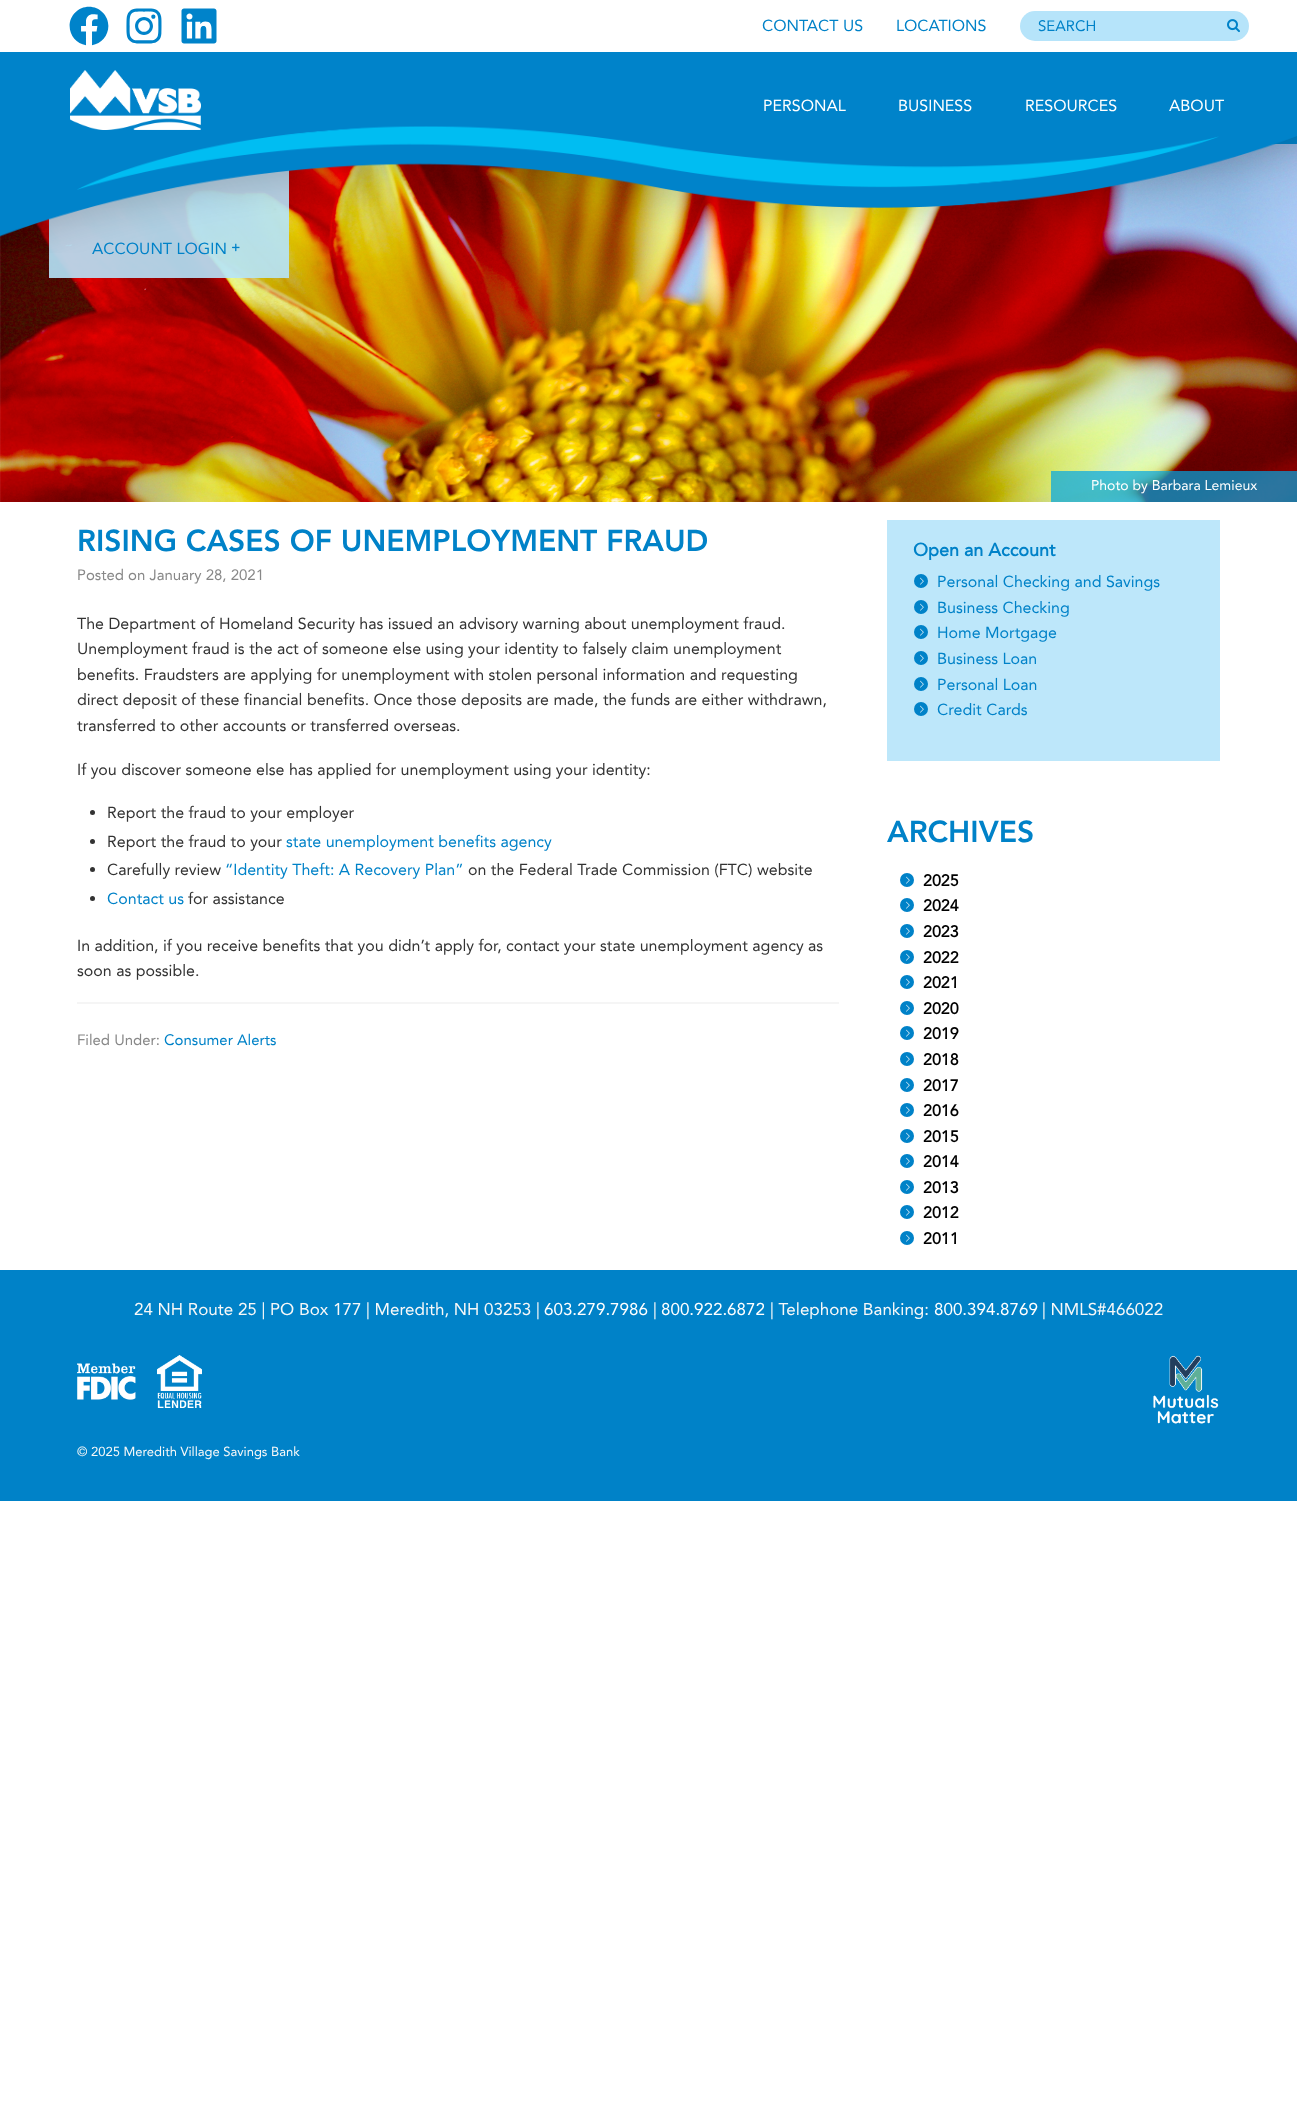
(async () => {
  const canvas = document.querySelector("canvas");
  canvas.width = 1297;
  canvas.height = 2117;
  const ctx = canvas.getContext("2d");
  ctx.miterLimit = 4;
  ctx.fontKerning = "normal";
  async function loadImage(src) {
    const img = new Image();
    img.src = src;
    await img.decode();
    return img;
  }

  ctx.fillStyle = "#ffffff";
  ctx.fillRect(0, 0, 1297, 2117);
  ctx.drawImage(await loadImage("img/1.png"), 69, 6, 40, 40);
  ctx.drawImage(await loadImage("img/2.png"), 126, 8, 36, 36);
  ctx.drawImage(await loadImage("img/3.png"), 181, 8, 36, 36);
  ctx.fillStyle = "#b6e4fa";
  ctx.beginPath();
  ctx.roundRect(1020, 11, 229, 30, 15);
  ctx.fill();
  ctx.drawImage(await loadImage("img/4.png"), 1227, 19, 13, 14);
  ctx.fillStyle = "#0083ca";
  ctx.fillRect(0, 52, 1297, 92);
  ctx.drawImage(await loadImage("img/7.png"), 0, 144, 1297, 358);
  ctx.fillStyle = "rgba(182, 228, 250, 0.9)";
  ctx.fillRect(49, 170, 240, 108);
  ctx.drawImage(await loadImage("img/8.png"), 232, 243, 8, 9);
  ctx.fillStyle = "rgba(0, 166, 227, 0.7)";
  ctx.fillRect(1051, 471, 246, 31);
  ctx.fillStyle = "#333333";
  ctx.beginPath();
  ctx.arc(92.5, 812.5, 2.5, 0, Math.PI * 2);
  ctx.fill();
  ctx.beginPath();
  ctx.arc(92.5, 841.5, 2.5, 0, Math.PI * 2);
  ctx.fill();
  ctx.beginPath();
  ctx.arc(92.5, 869.5, 2.5, 0, Math.PI * 2);
  ctx.fill();
  ctx.beginPath();
  ctx.arc(92.5, 898.5, 2.5, 0, Math.PI * 2);
  ctx.fill();
  ctx.fillStyle = "#f5f5f5";
  ctx.fillRect(77, 1002, 762, 2);
  ctx.fillStyle = "#bde7fa";
  ctx.fillRect(887, 520, 333, 241);
  ctx.fillStyle = "#0082c8";
  ctx.beginPath();
  ctx.arc(921, 581, 7, 0, Math.PI * 2);
  ctx.fill();
  ctx.drawImage(await loadImage("img/9.png"), 920, 577, 4, 8);
  ctx.beginPath();
  ctx.arc(921, 607, 7, 0, Math.PI * 2);
  ctx.fill();
  ctx.drawImage(await loadImage("img/9.png"), 920, 603, 4, 8);
  ctx.beginPath();
  ctx.arc(921, 632, 7, 0, Math.PI * 2);
  ctx.fill();
  ctx.drawImage(await loadImage("img/9.png"), 920, 628, 4, 8);
  ctx.beginPath();
  ctx.arc(921, 658, 7, 0, Math.PI * 2);
  ctx.fill();
  ctx.drawImage(await loadImage("img/9.png"), 920, 654, 4, 8);
  ctx.beginPath();
  ctx.arc(921, 684, 7, 0, Math.PI * 2);
  ctx.fill();
  ctx.drawImage(await loadImage("img/9.png"), 920, 680, 4, 8);
  ctx.beginPath();
  ctx.arc(921, 709, 7, 0, Math.PI * 2);
  ctx.fill();
  ctx.drawImage(await loadImage("img/9.png"), 920, 705, 4, 8);
  ctx.beginPath();
  ctx.arc(907, 880, 7, 0, Math.PI * 2);
  ctx.fill();
  ctx.drawImage(await loadImage("img/9.png"), 906, 876, 4, 8);
  ctx.beginPath();
  ctx.arc(907, 905, 7, 0, Math.PI * 2);
  ctx.fill();
  ctx.drawImage(await loadImage("img/9.png"), 906, 901, 4, 8);
  ctx.beginPath();
  ctx.arc(907, 931, 7, 0, Math.PI * 2);
  ctx.fill();
  ctx.drawImage(await loadImage("img/9.png"), 906, 927, 4, 8);
  ctx.beginPath();
  ctx.arc(907, 957, 7, 0, Math.PI * 2);
  ctx.fill();
  ctx.drawImage(await loadImage("img/9.png"), 906, 953, 4, 8);
  ctx.beginPath();
  ctx.arc(907, 982, 7, 0, Math.PI * 2);
  ctx.fill();
  ctx.drawImage(await loadImage("img/9.png"), 906, 978, 4, 8);
  ctx.beginPath();
  ctx.arc(907, 1008, 7, 0, Math.PI * 2);
  ctx.fill();
  ctx.drawImage(await loadImage("img/9.png"), 906, 1004, 4, 8);
  ctx.beginPath();
  ctx.arc(907, 1033, 7, 0, Math.PI * 2);
  ctx.fill();
  ctx.drawImage(await loadImage("img/9.png"), 906, 1029, 4, 8);
  ctx.beginPath();
  ctx.arc(907, 1059, 7, 0, Math.PI * 2);
  ctx.fill();
  ctx.drawImage(await loadImage("img/9.png"), 906, 1055, 4, 8);
  ctx.beginPath();
  ctx.arc(907, 1085, 7, 0, Math.PI * 2);
  ctx.fill();
  ctx.drawImage(await loadImage("img/9.png"), 906, 1081, 4, 8);
  ctx.beginPath();
  ctx.arc(907, 1110, 7, 0, Math.PI * 2);
  ctx.fill();
  ctx.drawImage(await loadImage("img/9.png"), 906, 1106, 4, 8);
  ctx.beginPath();
  ctx.arc(907, 1136, 7, 0, Math.PI * 2);
  ctx.fill();
  ctx.drawImage(await loadImage("img/9.png"), 906, 1132, 4, 8);
  ctx.beginPath();
  ctx.arc(907, 1161, 7, 0, Math.PI * 2);
  ctx.fill();
  ctx.drawImage(await loadImage("img/9.png"), 906, 1157, 4, 8);
  ctx.beginPath();
  ctx.arc(907, 1187, 7, 0, Math.PI * 2);
  ctx.fill();
  ctx.drawImage(await loadImage("img/9.png"), 906, 1183, 4, 8);
  ctx.beginPath();
  ctx.arc(907, 1212, 7, 0, Math.PI * 2);
  ctx.fill();
  ctx.drawImage(await loadImage("img/9.png"), 906, 1208, 4, 8);
  ctx.beginPath();
  ctx.arc(907, 1238, 7, 0, Math.PI * 2);
  ctx.fill();
  ctx.drawImage(await loadImage("img/9.png"), 906, 1234, 4, 8);
  ctx.fillRect(0, 1270, 1297, 231);
  ctx.drawImage(await loadImage("img/10.png"), 77, 1355, 125, 53);
  ctx.drawImage(await loadImage("img/11.png"), 1153, 1355, 66, 69);
  ctx.font = "16px Avenir";
  ctx.fillText("CONTACT US", 762, 31);
  ctx.fillText("LOCATIONS", 896, 31);
  ctx.font = "15px Avenir";
  ctx.fillText("SEARCH", 1038, 31);
  ctx.font = "16px Avenir";
  ctx.fillStyle = "#ffffff";
  for (const [text, x, y] of [
    ["PERSONAL", 763, 111],
    ["BUSINESS", 898, 111],
    ["RESOURCES", 1025, 111],
    ["ABOUT", 1169, 111],
  ]) {
    ctx.fillText(text, x, y);
  }
  ctx.fillStyle = "#0082c8";
  ctx.fillText("ACCOUNT LOGIN", 92, 254);
  ctx.drawImage(await loadImage("img/6.png"), 0, 126, 1297, 127);
  ctx.drawImage(await loadImage("img/5.png"), 70, 70, 131, 60);
  ctx.font = "14px Avenir";
  ctx.fillStyle = "#ffffff";
  ctx.fillText("Photo by Barbara Lemieux", 1091, 490);
  ctx.font = "900 30px Avenir";
  ctx.fillStyle = "#0082c8";
  ctx.fillText("RISING CASES OF UNEMPLOYMENT FRAUD", 77, 551);
  ctx.font = "15px Avenir";
  ctx.fillStyle = "#888888";
  ctx.fillText("Posted on January 28, 2021", 77, 580);
  ctx.font = "16px Avenir";
  ctx.fillStyle = "#333333";
  for (const [text, x, y] of [
    ["The Department of Homeland Security has issued an advisory warning about unemployment fraud.", 77, 629],
    ["Unemployment fraud is the act of someone else using your identity to falsely claim unemployment", 77, 654],
    ["benefits. Fraudsters are applying for unemployment with stolen personal information and requesting", 77, 680],
    ["direct deposit of these financial benefits. Once those deposits are made, the funds are either withdrawn,", 77, 705],
    ["transferred to other accounts or transferred overseas.", 77, 731],
    ["If you discover someone else has applied for unemployment using your identity:", 77, 775],
    ["Report the fraud to your employer", 107, 818],
    ["Report the fraud to your", 107, 847],
  ]) {
    ctx.fillText(text, x, y);
  }
  ctx.fillStyle = "#0082c8";
  ctx.fillText("state unemployment benefits agency", 286, 847);
  ctx.fillStyle = "#333333";
  ctx.fillText("Carefully review", 107, 875);
  ctx.fillStyle = "#0082c8";
  ctx.fillText("“Identity Theft: A Recovery Plan”", 225, 875);
  ctx.fillStyle = "#333333";
  ctx.fillText("on the Federal Trade Commission (FTC) website", 468, 875);
  ctx.fillStyle = "#0082c8";
  ctx.fillText("Contact us", 107, 904);
  ctx.fillStyle = "#333333";
  for (const [text, x, y] of [
    ["for assistance", 188, 904],
    ["In addition, if you receive benefits that you didn’t apply for, contact your state unemployment agency as", 77, 951],
    ["soon as possible.", 77, 976],
  ]) {
    ctx.fillText(text, x, y);
  }
  ctx.font = "15px Avenir";
  ctx.fillStyle = "#888888";
  ctx.fillText("Filed Under:", 77, 1045);
  ctx.fillStyle = "#0082c8";
  ctx.fillText("Consumer Alerts", 164, 1045);
  ctx.font = "bold 18px Avenir";
  ctx.fillText("Open an Account", 913, 556);
  ctx.font = "16px Avenir";
  for (const [text, x, y] of [
    ["Personal Checking and Savings", 937, 587],
    ["Business Checking", 937, 613],
    ["Home Mortgage", 937, 638],
    ["Business Loan", 937, 664],
    ["Personal Loan", 937, 690],
    ["Credit Cards", 937, 715],
  ]) {
    ctx.fillText(text, x, y);
  }
  ctx.font = "900 30px Avenir";
  ctx.fillText("ARCHIVES", 887, 842);
  ctx.font = "bold 16px Avenir";
  ctx.fillStyle = "#000000";
  for (const [text, x, y] of [
    ["2025", 923, 886],
    ["2024", 923, 911],
    ["2023", 923, 937],
    ["2022", 923, 963],
    ["2021", 923, 988],
    ["2020", 923, 1014],
    ["2019", 923, 1039],
    ["2018", 923, 1065],
    ["2017", 923, 1091],
    ["2016", 923, 1116],
    ["2015", 923, 1142],
    ["2014", 923, 1167],
    ["2013", 923, 1193],
    ["2012", 923, 1218],
    ["2011", 923, 1244],
  ]) {
    ctx.fillText(text, x, y);
  }
  ctx.font = "17px Avenir";
  ctx.fillStyle = "#f7f8f8";
  ctx.fillText("24 NH Route 25 | PO Box 177 | Meredith, NH 03253 |", 134, 1315);
  ctx.fillStyle = "#ffffff";
  ctx.fillText("603.279.7986", 544, 1315);
  ctx.fillStyle = "#f7f8f8";
  ctx.fillText("|", 653, 1315);
  ctx.fillStyle = "#ffffff";
  ctx.fillText("800.922.6872", 661, 1315);
  ctx.fillStyle = "#f7f8f8";
  ctx.fillText("| Telephone Banking:", 770, 1315);
  ctx.fillStyle = "#ffffff";
  ctx.fillText("800.394.8769", 934, 1315);
  ctx.fillStyle = "#f7f8f8";
  ctx.fillText("| NMLS#466022", 1042, 1315);
  ctx.font = "13px Avenir";
  ctx.fillText("© 2025 Meredith Village Savings Bank", 77, 1456);
})();
